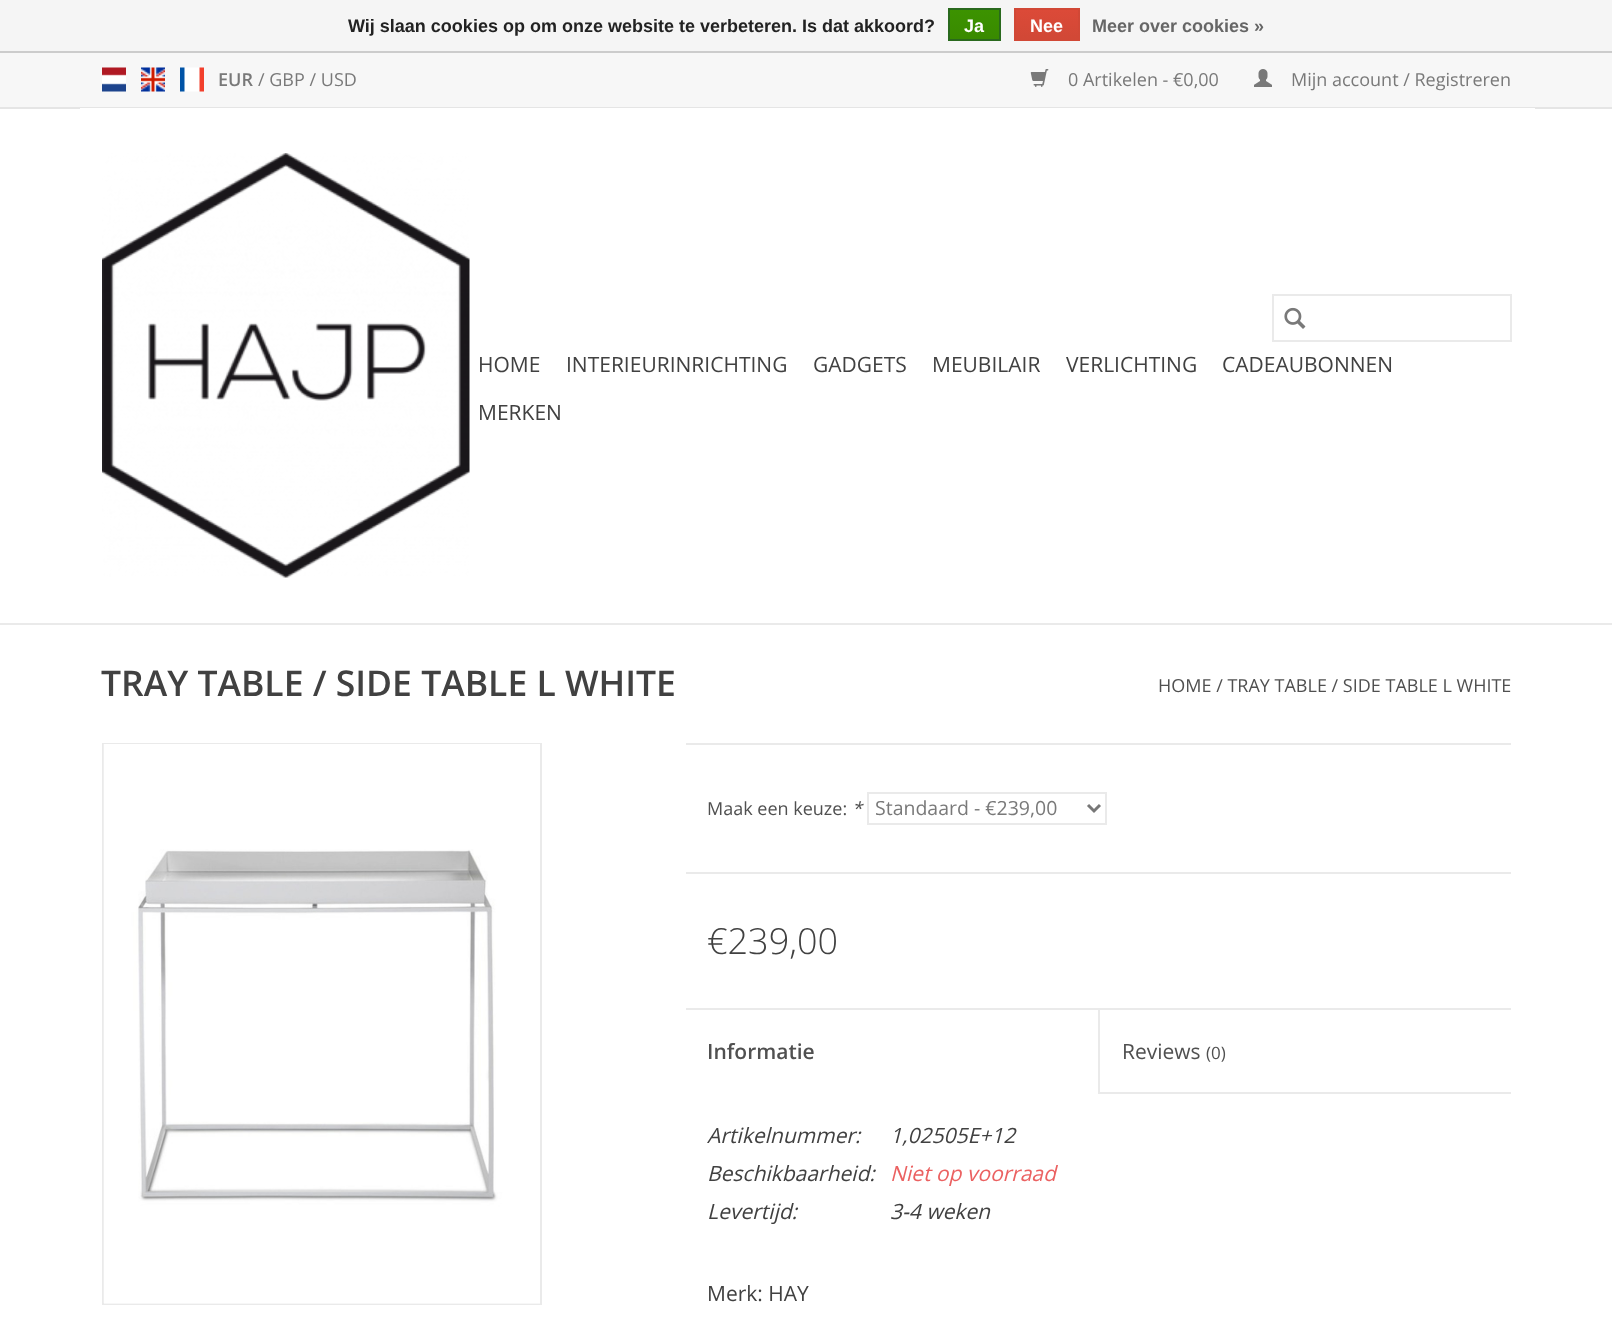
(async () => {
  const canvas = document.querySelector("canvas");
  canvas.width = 1612;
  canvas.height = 1317;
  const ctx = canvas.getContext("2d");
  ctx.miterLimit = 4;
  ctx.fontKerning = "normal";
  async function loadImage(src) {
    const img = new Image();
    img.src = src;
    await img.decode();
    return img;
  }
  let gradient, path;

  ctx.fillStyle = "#ffffff";
  ctx.fillRect(0, 0, 1612, 1317);
  ctx.fillStyle = "#f5f5f5";
  ctx.fillRect(0, 0, 1612, 51);
  ctx.fillStyle = "#cccccc";
  ctx.fillRect(0, 51, 1612, 2);
  gradient = ctx.createLinearGradient(974, 9, 974, 39);
  gradient.addColorStop(0, "#3c9300");
  gradient.addColorStop(1, "#398a00");
  ctx.fillStyle = gradient;
  ctx.fillRect(950, 10, 49, 29);
  ctx.strokeStyle = "#29691d";
  ctx.lineWidth = 2;
  ctx.strokeRect(949, 9, 51, 31);
  gradient = ctx.createLinearGradient(1047, 9, 1047, 39);
  gradient.addColorStop(0, "#dc4a38");
  gradient.addColorStop(1, "#d14836");
  ctx.fillStyle = gradient;
  ctx.fillRect(1016, 10, 62, 29);
  ctx.strokeStyle = "#d14836";
  ctx.strokeRect(1015, 9, 64, 31);
  for (const [x, y, w, h, color] of [
    [0, 623, 1612, 2, "#eaeaea"],
    [0, 53, 1612, 54, "#f7f7f7"],
    [0, 107, 1612, 2, "#e5e5e5"],
  ]) {
    ctx.fillStyle = color;
    ctx.fillRect(x, y, w, h);
  }
  ctx.drawImage(await loadImage("img/1.png"), 102, 67, 24, 25);
  ctx.drawImage(await loadImage("img/2.png"), 141, 67, 24, 25);
  ctx.drawImage(await loadImage("img/3.png"), 180, 67, 24, 25);
  ctx.drawImage(await loadImage("img/4.png"), 1030, 69, 19, 18);
  ctx.drawImage(await loadImage("img/5.png"), 1254, 69, 18, 18);
  ctx.fillStyle = "#ffffff";
  ctx.fillRect(80, 108, 1455, 1);
  ctx.drawImage(await loadImage("img/6.png"), 102, 153, 368, 425);
  ctx.strokeStyle = "#eaeaea";
  ctx.strokeRect(1273, 295, 238, 46);
  ctx.drawImage(await loadImage("img/7.png"), 1284, 307, 22, 22);
  ctx.strokeRect(103, 744, 438, 560);
  ctx.fillStyle = "#f7f7f7";
  ctx.fillRect(104, 1303, 436, 1);
  ctx.drawImage(await loadImage("img/8.png"), 103, 744, 437, 559);
  ctx.fillStyle = "#eaeaea";
  ctx.fillRect(686, 743, 825, 2);
  ctx.strokeRect(868, 793, 238, 31);
  path = new Path2D("M1088 805L1094 811L1100 805");
  ctx.strokeStyle = "#777777";
  ctx.lineWidth = 3;
  ctx.stroke(path);
  for (const [x, y, w, h, color] of [
    [686, 872, 825, 2, "#eaeaea"],
    [686, 1008, 825, 2, "#eaeaea"],
    [1098, 1092, 413, 2, "#eaeaea"],
    [1098, 1010, 2, 84, "#eaeaea"],
  ]) {
    ctx.fillStyle = color;
    ctx.fillRect(x, y, w, h);
  }
  ctx.font = "bold 18px Liberation Sans";
  ctx.fillStyle = "#222222";
  ctx.fillText("Wij slaan cookies op om onze website te verbeteren. Is dat akkoord?", 348, 32);
  ctx.fillStyle = "#ffffff";
  ctx.fillText("Ja", 964, 32);
  ctx.fillText("Nee", 1030, 32);
  ctx.fillStyle = "#666666";
  ctx.fillText("Meer over cookies »", 1092, 32);
  ctx.font = "600 18px Open Sans";
  ctx.fillStyle = "#797979";
  ctx.fillText("EUR", 218, 86);
  ctx.font = "18px Open Sans";
  for (const [text, x, y] of [
    ["/ GBP / USD", 258, 86],
    ["0 Artikelen - €0,00", 1068, 86],
    ["Mijn account / Registreren", 1291, 86],
  ]) {
    ctx.fillText(text, x, y);
  }
  ctx.font = "21px Open Sans";
  ctx.fillStyle = "#414141";
  for (const [text, x, y] of [
    ["HOME", 478, 372],
    ["INTERIEURINRICHTING", 566, 372],
    ["GADGETS", 813, 372],
    ["MEUBILAIR", 932, 372],
    ["VERLICHTING", 1066, 372],
    ["CADEAUBONNEN", 1222, 372],
    ["MERKEN", 478, 420],
  ]) {
    ctx.fillText(text, x, y);
  }
  ctx.font = "600 35.5px Open Sans";
  ctx.fillText("TRAY TABLE / SIDE TABLE L WHITE", 101, 696);
  ctx.font = "18px Open Sans";
  ctx.fillStyle = "#505050";
  ctx.fillText("HOME / TRAY TABLE / SIDE TABLE L WHITE", 1158, 692);
  ctx.fillText("Maak een keuze:", 707, 815);
  ctx.font = "italic 18px Open Sans";
  ctx.fillText("*", 852, 815);
  ctx.font = "19.5px Open Sans";
  ctx.fillStyle = "#797979";
  ctx.fillText("Standaard - €239,00", 875, 815);
  ctx.font = "300 36px Open Sans";
  ctx.fillStyle = "#414141";
  ctx.fillText("€239,00", 707, 954);
  ctx.font = "600 21px Open Sans";
  ctx.fillStyle = "#505050";
  ctx.fillText("Informatie", 707, 1059);
  ctx.font = "21px Open Sans";
  ctx.fillText("Reviews", 1122, 1059);
  ctx.font = "17px Open Sans";
  ctx.fillText("(0)", 1206, 1059);
  ctx.font = "italic 21px Open Sans";
  ctx.fillStyle = "#414141";
  for (const [text, x, y] of [
    ["Artikelnummer:", 707, 1143],
    ["1,02505E+12", 890, 1143],
    ["Beschikbaarheid:", 707, 1181],
  ]) {
    ctx.fillText(text, x, y);
  }
  ctx.fillStyle = "#eb6161";
  ctx.fillText("Niet op voorraad", 890, 1181);
  ctx.fillStyle = "#414141";
  ctx.fillText("Levertijd:", 707, 1219);
  ctx.fillText("3-4 weken", 890, 1219);
  ctx.font = "21px Open Sans";
  ctx.fillText("Merk: HAY", 707, 1301);
})();
